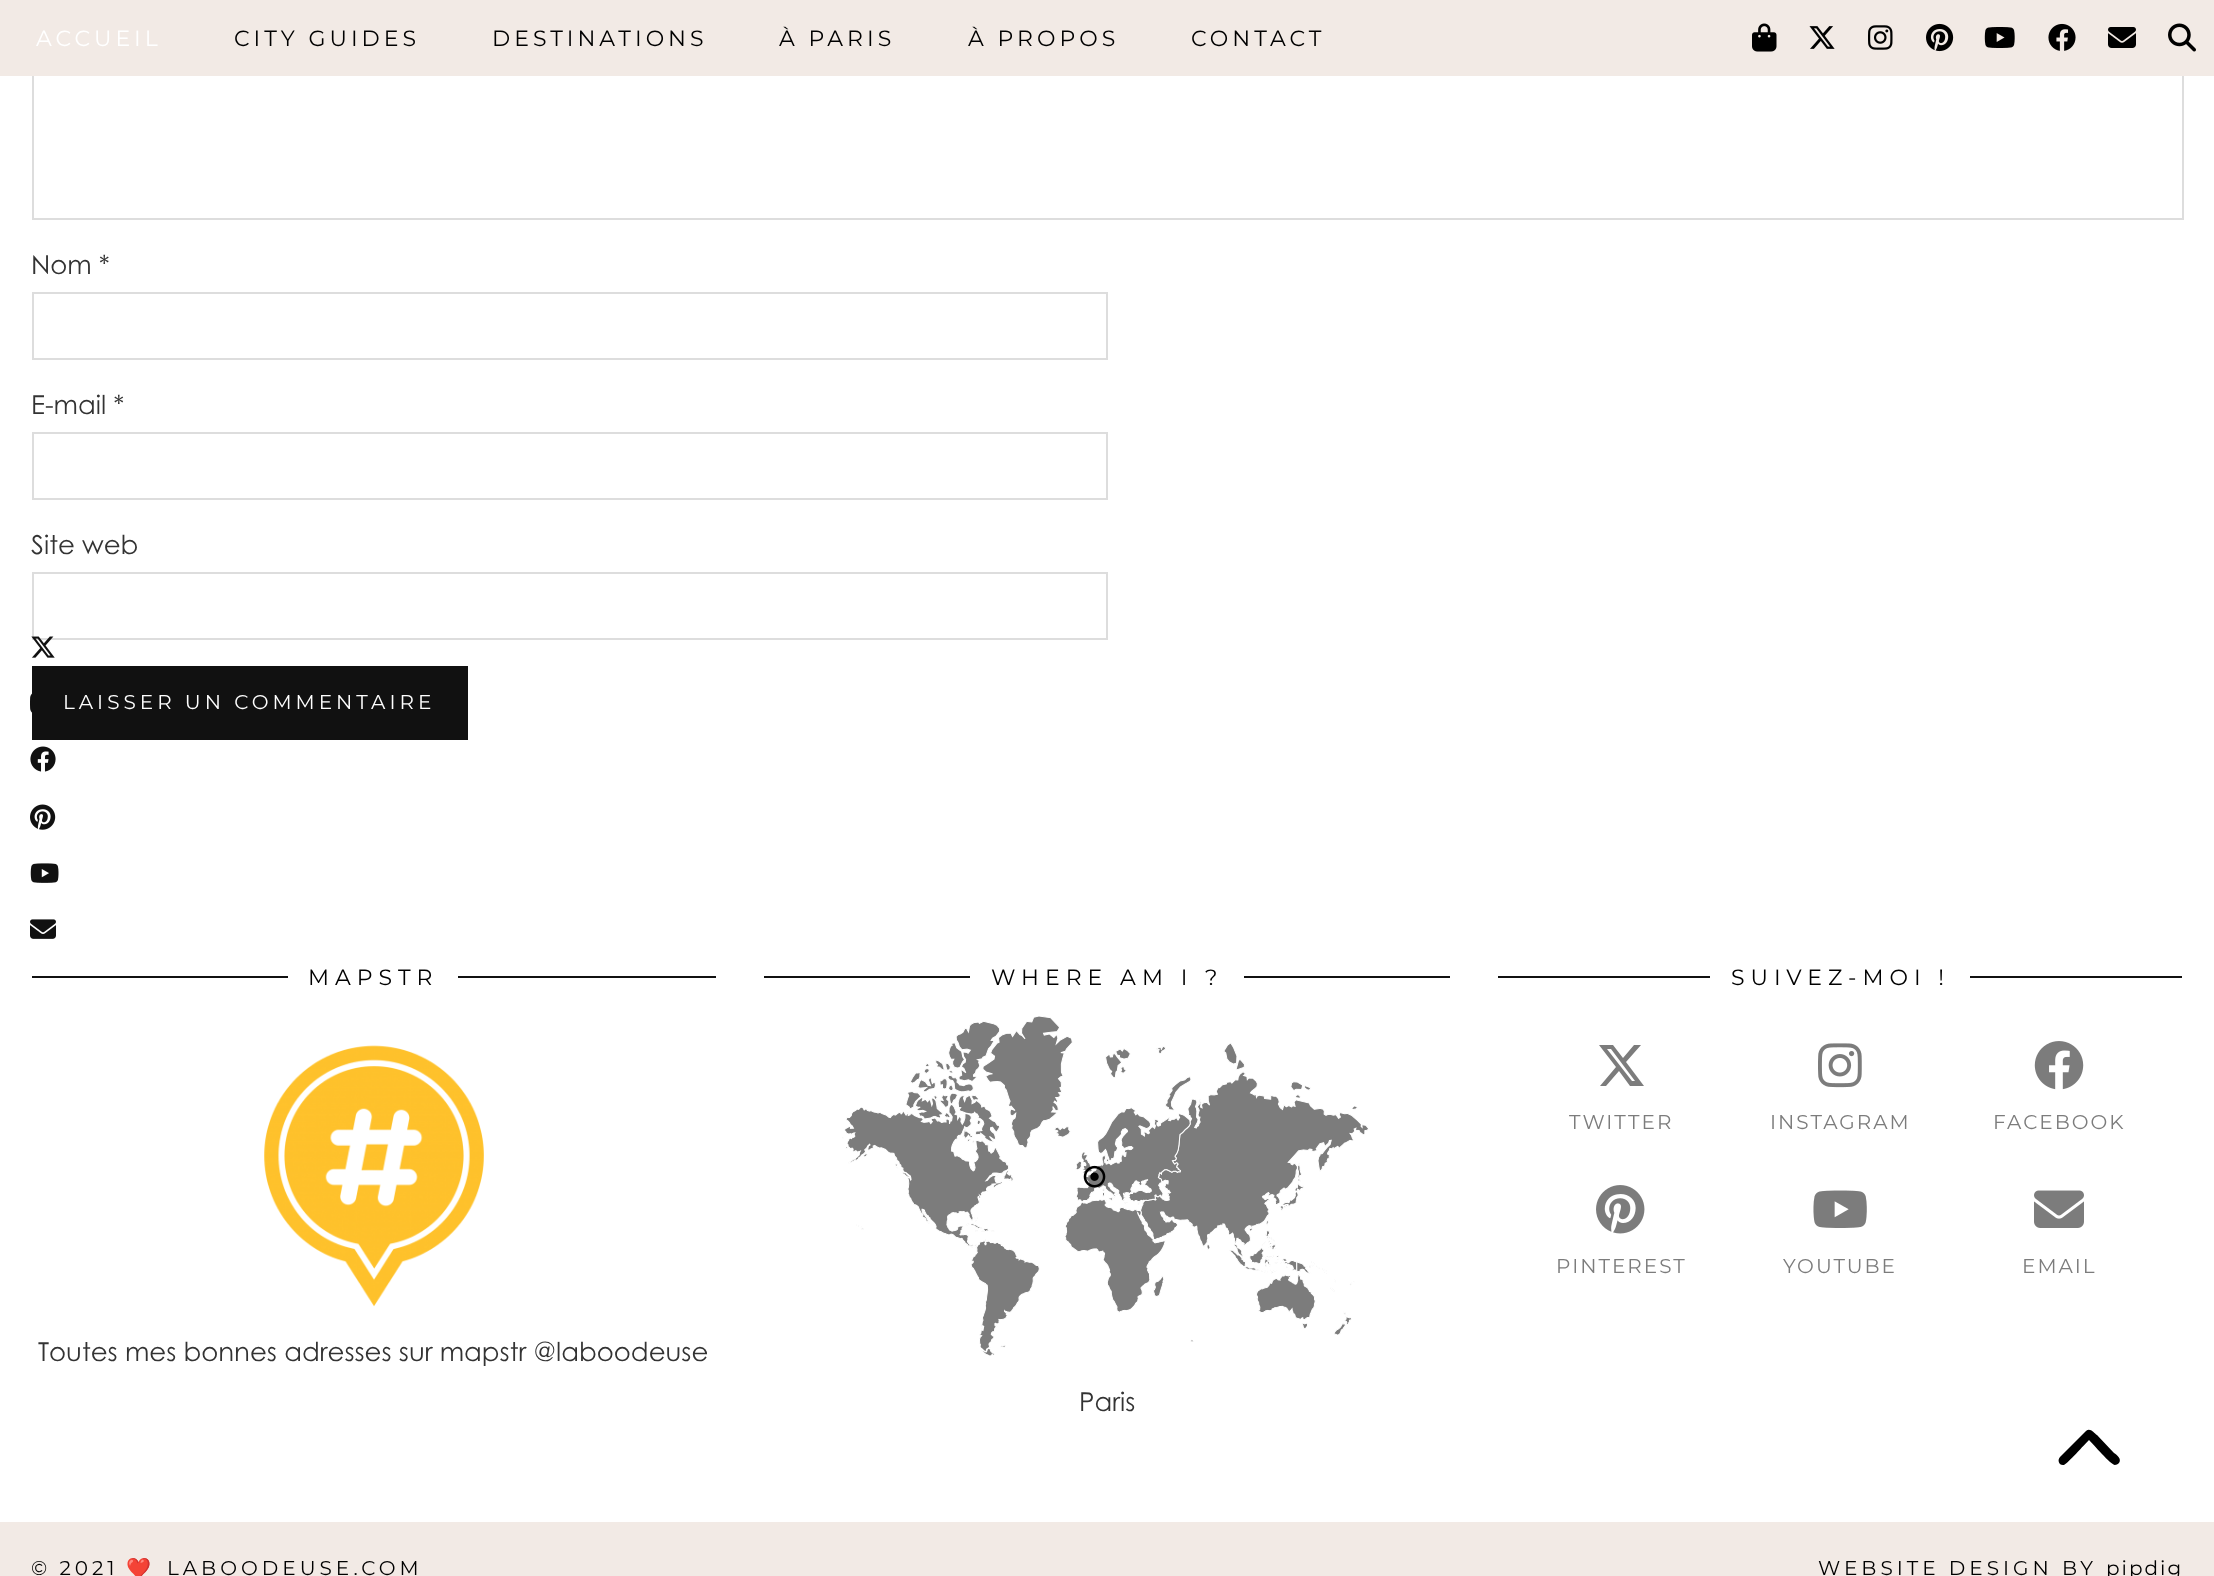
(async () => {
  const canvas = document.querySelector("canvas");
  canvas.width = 2214;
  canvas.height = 1576;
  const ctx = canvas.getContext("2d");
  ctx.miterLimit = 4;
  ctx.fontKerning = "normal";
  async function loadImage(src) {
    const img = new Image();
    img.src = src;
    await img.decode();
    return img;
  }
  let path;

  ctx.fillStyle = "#ffffff";
  ctx.fillRect(0, 0, 2214, 1576);
  ctx.strokeStyle = "#dddddd";
  ctx.lineWidth = 2;
  ctx.strokeRect(33, -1, 2150, 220);
  ctx.fillStyle = "#f2eae5";
  ctx.fillRect(0, 0, 2214, 76);
  ctx.drawImage(await loadImage("img/1.png"), 1752, 23, 25, 29);
  ctx.drawImage(await loadImage("img/2.png"), 1809, 26, 26, 23);
  ctx.drawImage(await loadImage("img/3.png"), 1868, 25, 25, 25);
  ctx.drawImage(await loadImage("img/4.png"), 1926, 23, 28, 29);
  ctx.drawImage(await loadImage("img/5.png"), 1984, 27, 31, 21);
  ctx.drawImage(await loadImage("img/6.png"), 2048, 23, 28, 28);
  ctx.drawImage(await loadImage("img/7.png"), 2108, 27, 28, 21);
  ctx.drawImage(await loadImage("img/8.png"), 2168, 23, 28, 29);
  ctx.strokeRect(33, 293, 1074, 66);
  ctx.strokeRect(33, 433, 1074, 66);
  ctx.strokeRect(33, 573, 1074, 66);
  ctx.fillStyle = "#111111";
  ctx.fillRect(32, 666, 436, 74);
  ctx.drawImage(await loadImage("img/9.png"), 31, 636, 24, 22);
  ctx.drawImage(await loadImage("img/10.png"), 30, 693, 2, 20);
  ctx.drawImage(await loadImage("img/11.png"), 30, 746, 26, 26);
  ctx.drawImage(await loadImage("img/12.png"), 30, 804, 26, 26);
  ctx.drawImage(await loadImage("img/13.png"), 30, 863, 29, 20);
  ctx.drawImage(await loadImage("img/14.png"), 30, 919, 26, 20);
  ctx.fillRect(32, 976, 684, 2);
  ctx.fillStyle = "#ffffff";
  ctx.fillRect(288, 976, 170, 2);
  ctx.drawImage(await loadImage("img/15.png"), 264, 1045, 220, 262);
  ctx.fillStyle = "#111111";
  ctx.fillRect(764, 976, 686, 2);
  ctx.fillStyle = "#ffffff";
  ctx.fillRect(970, 976, 274, 2);
  ctx.drawImage(await loadImage("img/16.png"), 842, 1016, 527, 340);
  ctx.fillStyle = "#111111";
  ctx.fillRect(1498, 976, 684, 2);
  ctx.fillStyle = "#ffffff";
  ctx.fillRect(1710, 976, 260, 2);
  ctx.fillStyle = "#7c7c7c";
  path = new Path2D("M1634 1045H1641L1626 1062L1644 1086H1630L1619 1071L1606 1086H1600L1616 1067L1599 1045H1613L1623 1058ZM1632 1081H1635L1611 1049H1607Z");
  ctx.fill(path);
  ctx.drawImage(await loadImage("img/17.png"), 1818, 1043, 44, 45);
  ctx.drawImage(await loadImage("img/18.png"), 2034, 1041, 50, 49);
  ctx.drawImage(await loadImage("img/19.png"), 1596, 1185, 49, 49);
  ctx.drawImage(await loadImage("img/20.png"), 1813, 1190, 54, 38);
  ctx.drawImage(await loadImage("img/21.png"), 2034, 1190, 50, 38);
  ctx.fillStyle = "#000000";
  path = new Path2D("M2086 1431C2090 1427 2094 1433 2097 1435L2114 1453C2117 1455 2122 1459 2119 1463C2118 1464 2116 1465 2115 1465C2111 1465 2093 1444 2089 1440C2085 1444 2067 1464 2064 1465C2059 1466 2057 1460 2060 1457Z");
  ctx.fill(path);
  ctx.fillStyle = "#f2eae5";
  ctx.fillRect(0, 1522, 2214, 54);
  ctx.letterSpacing = "4px";
  ctx.font = "100 22px Montserrat";
  ctx.fillStyle = "#ffffff";
  ctx.fillText("ACCUEIL", 36, 46);
  ctx.fillStyle = "#000000";
  for (const [text, x, y] of [
    ["CITY GUIDES", 234, 46],
    ["DESTINATIONS", 492, 46],
    ["À PARIS", 779, 46],
    ["À PROPOS", 968, 46],
    ["CONTACT", 1191, 46],
  ]) {
    ctx.fillText(text, x, y);
  }
  ctx.letterSpacing = "0px";
  ctx.font = "26px Century Gothic";
  ctx.fillStyle = "#333333";
  for (const [text, x, y] of [
    ["Nom *", 31, 274],
    ["E-mail *", 31, 414],
    ["Site web", 31, 554],
  ]) {
    ctx.fillText(text, x, y);
  }
  ctx.letterSpacing = "4px";
  ctx.font = "100 20px Montserrat";
  ctx.fillStyle = "#ffffff";
  ctx.fillText("LAISSER UN COMMENTAIRE", 63, 709);
  ctx.letterSpacing = "6px";
  ctx.font = "100 22px Montserrat";
  ctx.fillStyle = "#000000";
  ctx.fillText("MAPSTR", 308, 985);
  ctx.letterSpacing = "0px";
  ctx.font = "26px Century Gothic";
  ctx.fillStyle = "#333333";
  ctx.fillText("Toutes mes bonnes adresses sur mapstr @laboodeuse", 38, 1361);
  ctx.letterSpacing = "6px";
  ctx.font = "100 22px Montserrat";
  ctx.fillStyle = "#000000";
  ctx.fillText("WHERE AM I ?", 991, 985);
  ctx.letterSpacing = "0px";
  ctx.font = "26px Century Gothic";
  ctx.fillStyle = "#333333";
  ctx.fillText("Paris", 1079, 1411);
  ctx.letterSpacing = "6px";
  ctx.font = "100 22px Montserrat";
  ctx.fillStyle = "#000000";
  ctx.fillText("SUIVEZ-MOI !", 1731, 985);
  ctx.letterSpacing = "2px";
  ctx.font = "100 20px Montserrat";
  ctx.fillStyle = "#7c7c7c";
  for (const [text, x, y] of [
    ["TWITTER", 1569, 1129],
    ["INSTAGRAM", 1770, 1129],
    ["FACEBOOK", 1993, 1129],
    ["PINTEREST", 1556, 1273],
    ["YOUTUBE", 1783, 1273],
    ["EMAIL", 2022, 1273],
  ]) {
    ctx.fillText(text, x, y);
  }
  ctx.letterSpacing = "4px";
  ctx.wordSpacing = "-1px";
  ctx.fillStyle = "#000000";
  ctx.fillText("© 2021", 31, 1575);
  ctx.wordSpacing = "0px";
  ctx.font = "20px Noto Color Emoji";
  ctx.fillText("❤️", 126, 1575);
  ctx.font = "100 20px Montserrat";
  ctx.fillText("LABOODEUSE.COM", 167, 1575);
  ctx.fillText("WEBSITE DESIGN BY", 1818, 1575);
  ctx.letterSpacing = "2px";
  ctx.fillText("pipdig", 2106, 1575);
})();
